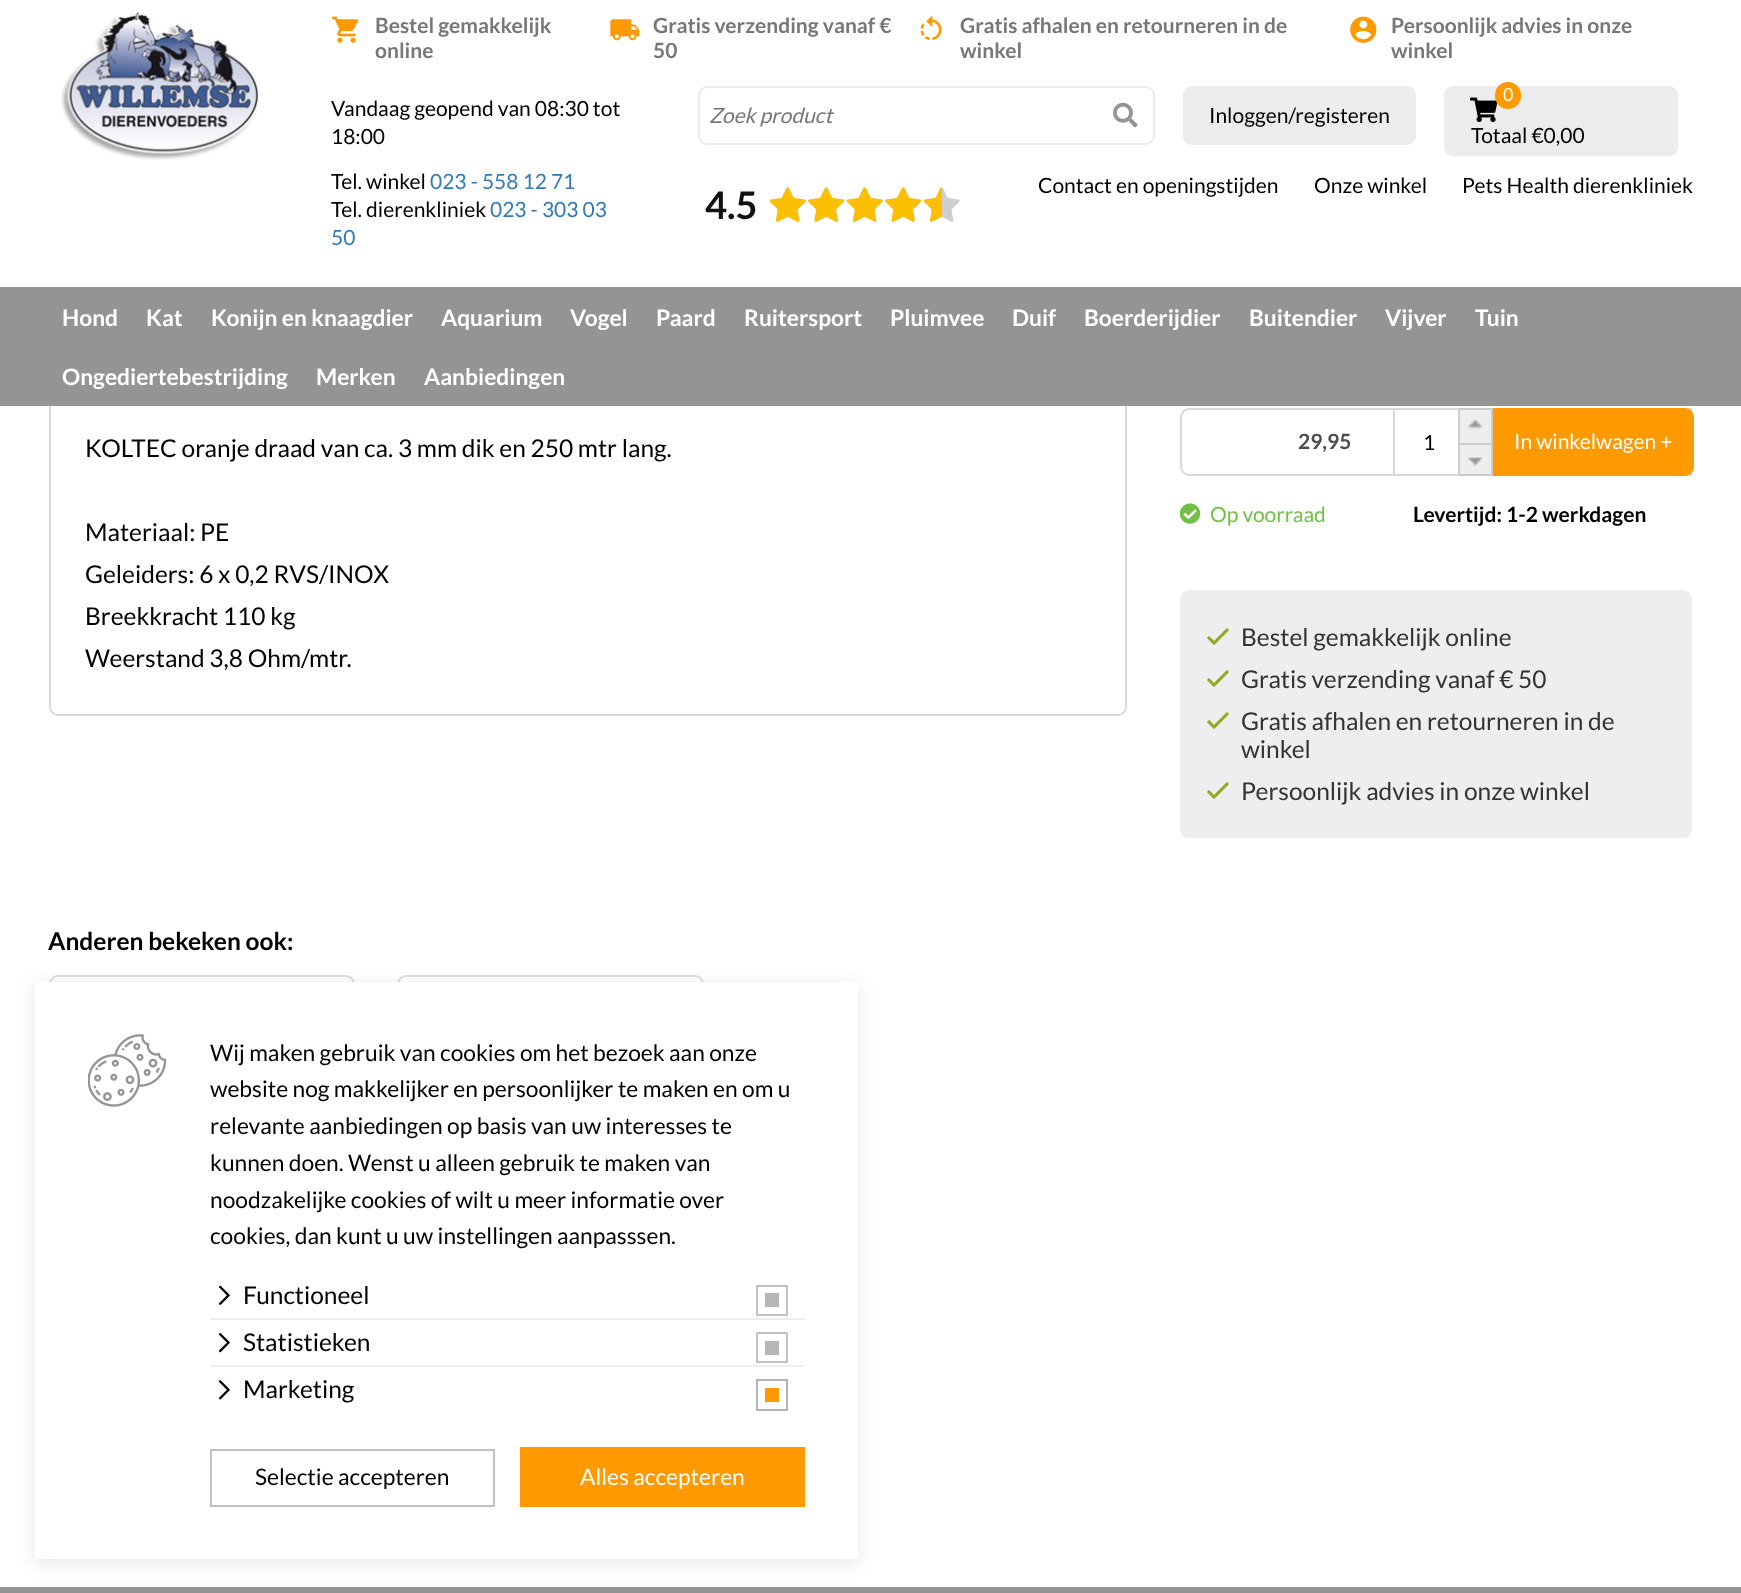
(async () => {
  const canvas = document.querySelector("canvas");
  canvas.width = 1741;
  canvas.height = 1593;
  const ctx = canvas.getContext("2d");
  ctx.miterLimit = 4;
  ctx.fontKerning = "normal";
  async function loadImage(src) {
    const img = new Image();
    img.src = src;
    await img.decode();
    return img;
  }

  ctx.fillStyle = "#ffffff";
  ctx.fillRect(0, 0, 1741, 1593);
  ctx.drawImage(await loadImage("img/1.png"), 61, 12, 198, 148);
  ctx.drawImage(await loadImage("img/2.png"), 332, 16, 27, 27);
  ctx.drawImage(await loadImage("img/3.png"), 610, 19, 30, 22);
  ctx.drawImage(await loadImage("img/4.png"), 920, 15, 22, 26);
  ctx.drawImage(await loadImage("img/5.png"), 1350, 16, 27, 27);
  ctx.beginPath();
  ctx.roundRect(699, 87, 455, 57, 8);
  ctx.strokeStyle = "#ececec";
  ctx.lineWidth = 2;
  ctx.stroke();
  ctx.drawImage(await loadImage("img/6.png"), 1113, 102, 25, 26);
  ctx.fillStyle = "#ececec";
  ctx.beginPath();
  ctx.roundRect(1183, 86, 233, 59, 9);
  ctx.fill();
  ctx.beginPath();
  ctx.roundRect(1444, 86, 234, 70, 9);
  ctx.fill();
  ctx.drawImage(await loadImage("img/7.png"), 1470, 97, 28, 25);
  ctx.fillStyle = "#ff9900";
  ctx.beginPath();
  ctx.roundRect(1495, 82, 26, 27, 13);
  ctx.fill();
  ctx.drawImage(await loadImage("img/8.png"), 769, 187, 37, 35);
  ctx.drawImage(await loadImage("img/9.png"), 769, 187, 37, 35);
  ctx.drawImage(await loadImage("img/10.png"), 808, 187, 36, 35);
  ctx.drawImage(await loadImage("img/11.png"), 808, 187, 37, 35);
  ctx.drawImage(await loadImage("img/8.png"), 846, 187, 37, 35);
  ctx.drawImage(await loadImage("img/9.png"), 846, 187, 37, 35);
  ctx.drawImage(await loadImage("img/10.png"), 885, 187, 36, 35);
  ctx.drawImage(await loadImage("img/11.png"), 885, 187, 37, 35);
  ctx.drawImage(await loadImage("img/8.png"), 923, 187, 37, 35);
  ctx.drawImage(await loadImage("img/12.png"), 923, 187, 19, 35);
  ctx.beginPath();
  ctx.roundRect(50, 309, 1076, 406, 8);
  ctx.strokeStyle = "#d9d9d9";
  ctx.stroke();
  ctx.fillStyle = "#949494";
  ctx.fillRect(0, 287, 1741, 119);
  ctx.beginPath();
  ctx.roundRect(1181, 409, 510, 66, [8, 0, 0, 8]);
  ctx.stroke();
  ctx.strokeRect(1394, 409, 296, 66);
  ctx.fillStyle = "#eeeeee";
  ctx.fillRect(1460, 410, 31, 33);
  ctx.drawImage(await loadImage("img/13.png"), 1468, 419, 15, 10);
  ctx.fillStyle = "#ff9900";
  ctx.beginPath();
  ctx.roundRect(1491, 408, 203, 68, [0, 9, 9, 0]);
  ctx.fill();
  for (const [x, y, w, h, color] of [
    [1458, 408, 35, 2, "#cccccc"],
    [1491, 408, 2, 35, "#cccccc"],
    [1458, 408, 2, 35, "#cccccc"],
    [1460, 445, 31, 29, "#eeeeee"],
  ]) {
    ctx.fillStyle = color;
    ctx.fillRect(x, y, w, h);
  }
  ctx.drawImage(await loadImage("img/14.png"), 1468, 457, 15, 9);
  ctx.strokeStyle = "#cccccc";
  ctx.strokeRect(1459, 444, 33, 31);
  ctx.drawImage(await loadImage("img/15.png"), 1179, 503, 22, 21);
  ctx.beginPath();
  ctx.roundRect(1180, 590, 512, 248, 9);
  ctx.fill();
  ctx.drawImage(await loadImage("img/16.png"), 1207, 628, 22, 17);
  ctx.drawImage(await loadImage("img/16.png"), 1207, 670, 22, 17);
  ctx.drawImage(await loadImage("img/16.png"), 1207, 712, 22, 17);
  ctx.drawImage(await loadImage("img/16.png"), 1207, 782, 22, 17);
  ctx.beginPath();
  ctx.roundRect(50, 976, 304, 505, 8);
  ctx.strokeStyle = "#dddddd";
  ctx.stroke();
  ctx.beginPath();
  ctx.roundRect(398, 976, 305, 505, 8);
  ctx.stroke();
  ctx.fillStyle = "#949494";
  ctx.fillRect(0, 1587, 1741, 6);
  ctx.fillStyle = "rgba(0, 0, 0, 0.1)";
  ctx.filter = "blur(9px)";
  ctx.beginPath();
  ctx.rect(35, 985, 823, 578);
  ctx.fill();
  ctx.filter = "none";
  ctx.fillStyle = "#ffffff";
  ctx.fillRect(35, 982, 823, 577);
  ctx.drawImage(await loadImage("img/17.png"), 88, 1034, 78, 73);
  ctx.drawImage(await loadImage("img/18.png"), 218, 1285, 12, 20);
  ctx.strokeStyle = "#c2c2c2";
  ctx.strokeRect(757, 1286, 30, 29);
  ctx.fillStyle = "#b6b6b6";
  ctx.fillRect(765, 1293, 14, 14);
  ctx.fillStyle = "#eeeeee";
  ctx.fillRect(210, 1318, 595, 2);
  ctx.drawImage(await loadImage("img/19.png"), 218, 1332, 12, 21);
  ctx.strokeRect(757, 1333, 30, 29);
  ctx.fillStyle = "#b6b6b6";
  ctx.fillRect(765, 1341, 14, 14);
  ctx.fillStyle = "#eeeeee";
  ctx.fillRect(210, 1365, 595, 2);
  ctx.drawImage(await loadImage("img/20.png"), 218, 1380, 12, 20);
  ctx.strokeStyle = "#b3b3b3";
  ctx.strokeRect(757, 1380, 30, 30);
  ctx.fillStyle = "#ff9900";
  ctx.fillRect(765, 1388, 14, 14);
  ctx.strokeStyle = "#c0c0c0";
  ctx.strokeRect(211, 1450, 283, 56);
  ctx.fillRect(520, 1447, 285, 60);
  ctx.font = "bold 21px Lato";
  ctx.fillStyle = "#777777";
  for (const [text, x, y] of [
    ["Bestel gemakkelijk", 375, 33],
    ["online", 375, 58],
    ["Gratis verzending vanaf €", 653, 33],
    ["50", 653, 58],
    ["Gratis afhalen en retourneren in de", 960, 33],
    ["winkel", 960, 58],
    ["Persoonlijk advies in onze", 1391, 33],
    ["winkel", 1391, 58],
  ]) {
    ctx.fillText(text, x, y);
  }
  ctx.font = "21px Lato";
  ctx.fillStyle = "#000000";
  for (const [text, x, y] of [
    ["Vandaag geopend van 08:30 tot", 331, 116],
    ["18:00", 331, 144],
    ["Tel. winkel", 331, 189],
  ]) {
    ctx.fillText(text, x, y);
  }
  ctx.fillStyle = "#337ab7";
  ctx.fillText("023 - 558 12 71", 430, 189);
  ctx.fillStyle = "#000000";
  ctx.fillText("Tel. dierenkliniek", 331, 217);
  ctx.fillStyle = "#337ab7";
  ctx.fillText("023 - 303 03", 490, 217);
  ctx.fillText("50", 331, 245);
  ctx.font = "italic 21px Lato";
  ctx.fillStyle = "#777777";
  ctx.fillText("Zoek product", 709, 123);
  ctx.font = "21px Lato";
  ctx.fillStyle = "#000000";
  ctx.fillText("Inloggen/registeren", 1209, 123);
  ctx.font = "18px Lato";
  ctx.fillStyle = "#ffffff";
  ctx.fillText("0", 1503, 101);
  ctx.font = "21px Lato";
  ctx.fillStyle = "#000000";
  for (const [text, x, y] of [
    ["Totaal €0,00", 1471, 143],
    ["Contact en openingstijden", 1038, 193],
    ["Onze winkel", 1314, 193],
    ["Pets Health dierenkliniek", 1462, 193],
  ]) {
    ctx.fillText(text, x, y);
  }
  ctx.font = "bold 38px Lato";
  ctx.fillStyle = "#111111";
  ctx.fillText("4.5", 705, 219);
  ctx.font = "bold 22.75px Lato";
  ctx.fillStyle = "#ffffff";
  for (const [text, x, y] of [
    ["Hond", 62, 326],
    ["Kat", 146, 326],
    ["Konijn en knaagdier", 211, 326],
    ["Aquarium", 441, 326],
    ["Vogel", 570, 326],
    ["Paard", 656, 326],
    ["Ruitersport", 744, 326],
    ["Pluimvee", 890, 326],
    ["Duif", 1012, 326],
    ["Boerderijdier", 1084, 326],
    ["Buitendier", 1249, 326],
    ["Vijver", 1385, 326],
    ["Tuin", 1475, 326],
    ["Ongediertebestrijding", 62, 385],
    ["Merken", 316, 385],
    ["Aanbiedingen", 424, 385],
  ]) {
    ctx.fillText(text, x, y);
  }
  ctx.font = "24.5px Lato";
  ctx.fillStyle = "#000000";
  for (const [text, x, y] of [
    ["KOLTEC oranje draad van ca. 3 mm dik en 250 mtr lang.", 85, 457],
    ["Materiaal: PE", 85, 541],
    ["Geleiders: 6 x 0,2 RVS/INOX", 85, 583],
    ["Breekkracht 110 kg", 85, 625],
    ["Weerstand 3,8 Ohm/mtr.", 85, 667],
  ]) {
    ctx.fillText(text, x, y);
  }
  ctx.font = "bold 21px Lato";
  ctx.fillStyle = "#4d4d4d";
  ctx.fillText("29,95", 1298, 449);
  ctx.font = "21px Lato";
  ctx.fillStyle = "#000000";
  ctx.fillText("1", 1423, 450);
  ctx.fillStyle = "#ffffff";
  ctx.fillText("In winkelwagen +", 1514, 449);
  ctx.fillStyle = "#71bf44";
  ctx.fillText("Op voorraad", 1210, 522);
  ctx.font = "bold 21px Lato";
  ctx.fillStyle = "#000000";
  ctx.fillText("Levertijd: 1-2 werkdagen", 1413, 522);
  ctx.font = "24.5px Lato";
  ctx.fillStyle = "#333333";
  for (const [text, x, y] of [
    ["Bestel gemakkelijk online", 1241, 646],
    ["Gratis verzending vanaf € 50", 1241, 688],
    ["Gratis afhalen en retourneren in de", 1241, 730],
    ["winkel", 1241, 758],
    ["Persoonlijk advies in onze winkel", 1241, 800],
  ]) {
    ctx.fillText(text, x, y);
  }
  ctx.font = "bold 24.5px Lato";
  ctx.fillStyle = "#000000";
  ctx.fillText("Anderen bekeken ook:", 48, 950);
  ctx.font = "22.75px Lato";
  for (const [text, x, y] of [
    ["Wij maken gebruik van cookies om het bezoek aan onze", 210, 1061],
    ["website nog makkelijker en persoonlijker te maken en om u", 210, 1097],
    ["relevante aanbiedingen op basis van uw interesses te", 210, 1134],
    ["kunnen doen. Wenst u alleen gebruik te maken van", 210, 1171],
    ["noodzakelijke cookies of wilt u meer informatie over", 210, 1208],
    ["cookies, dan kunt u uw instellingen aanpasssen.", 210, 1244],
  ]) {
    ctx.fillText(text, x, y);
  }
  ctx.font = "24.5px Lato";
  for (const [text, x, y] of [
    ["Functioneel", 243, 1304],
    ["Statistieken", 243, 1351],
    ["Marketing", 243, 1398],
  ]) {
    ctx.fillText(text, x, y);
  }
  ctx.font = "22.75px Lato";
  ctx.fillText("Selectie accepteren", 255, 1485);
  ctx.fillStyle = "#ffffff";
  ctx.fillText("Alles accepteren", 580, 1485);
})();
